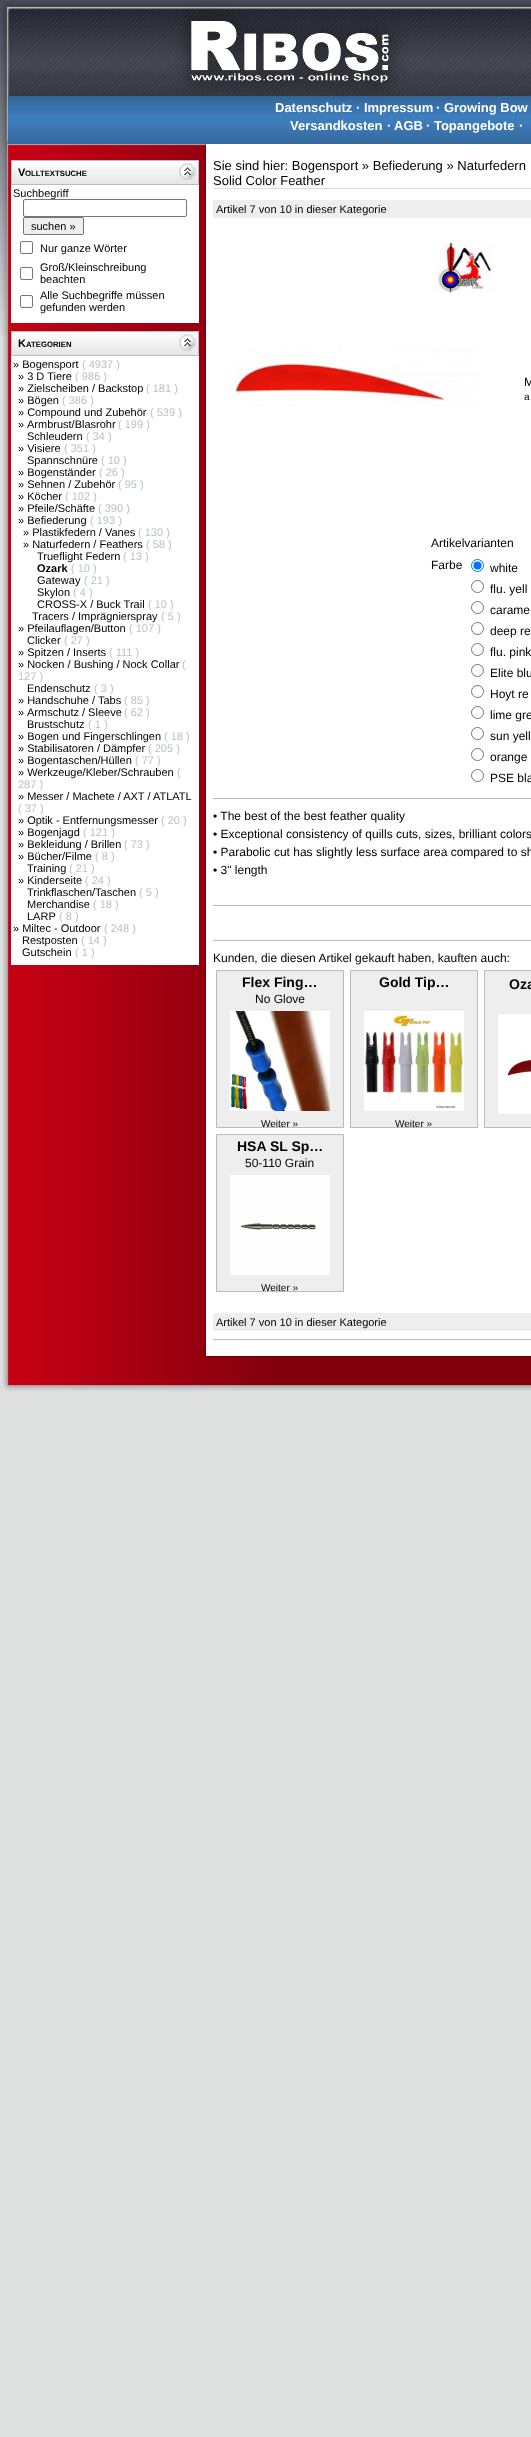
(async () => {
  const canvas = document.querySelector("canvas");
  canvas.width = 531;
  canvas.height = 2437;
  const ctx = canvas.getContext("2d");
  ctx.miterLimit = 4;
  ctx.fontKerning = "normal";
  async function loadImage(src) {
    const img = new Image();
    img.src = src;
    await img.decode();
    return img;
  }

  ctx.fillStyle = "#dedfdf";
  ctx.fillRect(0, 0, 531, 2437);
  ctx.drawImage(await loadImage("img/1.png"), 0, 0, 531, 336);
  ctx.drawImage(await loadImage("img/2.png"), 1, 1, 530, 95);
  ctx.drawImage(await loadImage("img/3.png"), 1, 96, 530, 54);
  ctx.drawImage(await loadImage("img/4.png"), 2, 150, 208, 1201);
  ctx.drawImage(await loadImage("img/5.png"), 11, 160, 188, 25);
  ctx.drawImage(await loadImage("img/6.png"), 179, 163, 17, 17);
  ctx.fillStyle = "#ffffff";
  ctx.fillRect(11, 185, 188, 138);
  ctx.fillStyle = "#efefef";
  ctx.beginPath();
  ctx.roundRect(23.5, 217.5, 60, 17, 1.5);
  ctx.fill();
  ctx.strokeStyle = "#767676";
  ctx.stroke();
  ctx.beginPath();
  ctx.roundRect(20.5, 241.5, 12, 12, 1.5);
  ctx.stroke();
  ctx.beginPath();
  ctx.roundRect(20.5, 267.5, 12, 12, 1.5);
  ctx.stroke();
  ctx.beginPath();
  ctx.roundRect(20.5, 295.5, 12, 12, 1.5);
  ctx.stroke();
  ctx.drawImage(await loadImage("img/5.png"), 11, 331, 188, 25);
  ctx.drawImage(await loadImage("img/6.png"), 179, 334, 17, 17);
  for (const [x, y, w, h, color] of [
    [11, 356, 188, 609, "#ffffff"],
    [210, 150, 321, 1201, "#ffffff"],
    [213, 188, 318, 1, "#dddddd"],
    [213, 200, 318, 18, "#eeeeee"],
  ]) {
    ctx.fillStyle = color;
    ctx.fillRect(x, y, w, h);
  }
  ctx.drawImage(await loadImage("img/7.png"), 234, 242, 258, 165);
  ctx.beginPath();
  ctx.arc(477.5, 565.5, 6, 0, Math.PI * 2);
  ctx.strokeStyle = "#0075ff";
  ctx.stroke();
  ctx.fillStyle = "#0075ff";
  ctx.beginPath();
  ctx.arc(477.5, 565.5, 4, 0, Math.PI * 2);
  ctx.fill();
  ctx.beginPath();
  ctx.arc(477.5, 586.5, 6, 0, Math.PI * 2);
  ctx.strokeStyle = "#767676";
  ctx.stroke();
  ctx.beginPath();
  ctx.arc(477.5, 607.5, 6, 0, Math.PI * 2);
  ctx.stroke();
  ctx.beginPath();
  ctx.arc(477.5, 628.5, 6, 0, Math.PI * 2);
  ctx.stroke();
  ctx.beginPath();
  ctx.arc(477.5, 649.5, 6, 0, Math.PI * 2);
  ctx.stroke();
  ctx.beginPath();
  ctx.arc(477.5, 670.5, 6, 0, Math.PI * 2);
  ctx.stroke();
  ctx.beginPath();
  ctx.arc(477.5, 691.5, 6, 0, Math.PI * 2);
  ctx.stroke();
  ctx.beginPath();
  ctx.arc(477.5, 712.5, 6, 0, Math.PI * 2);
  ctx.stroke();
  ctx.beginPath();
  ctx.arc(477.5, 733.5, 6, 0, Math.PI * 2);
  ctx.stroke();
  ctx.beginPath();
  ctx.arc(477.5, 754.5, 6, 0, Math.PI * 2);
  ctx.stroke();
  ctx.beginPath();
  ctx.arc(477.5, 775.5, 6, 0, Math.PI * 2);
  ctx.stroke();
  for (const [x, y, w, h, color] of [
    [213, 798, 318, 1, "#bbbbbb"],
    [213, 905, 318, 1, "#bbbbbb"],
    [213, 940, 318, 1, "#bbbbbb"],
  ]) {
    ctx.fillStyle = color;
    ctx.fillRect(x, y, w, h);
  }
  ctx.fillStyle = "#eeeeee";
  ctx.beginPath();
  ctx.rect(216.5, 970.5, 127, 157);
  ctx.fill();
  ctx.strokeStyle = "#bbbbbb";
  ctx.stroke();
  ctx.drawImage(await loadImage("img/8.png"), 230, 1011, 100, 100);
  ctx.beginPath();
  ctx.rect(350.5, 970.5, 127, 157);
  ctx.fill();
  ctx.stroke();
  ctx.drawImage(await loadImage("img/9.png"), 364, 1011, 100, 100);
  ctx.beginPath();
  ctx.rect(484.5, 970.5, 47, 157);
  ctx.fill();
  ctx.stroke();
  ctx.drawImage(await loadImage("img/10.png"), 498, 1014, 33, 100);
  ctx.beginPath();
  ctx.rect(216.5, 1134.5, 127, 157);
  ctx.fill();
  ctx.stroke();
  ctx.drawImage(await loadImage("img/11.png"), 230, 1175, 100, 100);
  ctx.fillRect(213, 1313, 318, 18);
  ctx.fillStyle = "#bbbbbb";
  ctx.fillRect(213, 1339, 318, 1);
  ctx.drawImage(await loadImage("img/12.png"), 2, 1351, 529, 40);
  ctx.font = "bold 13px Liberation Sans";
  ctx.fillStyle = "#ffffff";
  for (const [text, x, y] of [
    ["Datenschutz", 275, 112],
    ["· Impressum", 356, 112],
    ["· Growing Bow", 436, 112],
    ["Versandkosten", 290, 130],
    ["·", 387, 130],
    ["AGB", 394, 130],
    ["· Topangebote", 426, 130],
    ["·", 519, 130],
  ]) {
    ctx.fillText(text, x, y);
  }
  ctx.font = "bold 11px Liberation Sans";
  ctx.fillStyle = "#000000";
  ctx.fillText("V", 18, 176);
  ctx.font = "bold 7.75px Liberation Sans";
  ctx.fillText("OLLTEXTSUCHE", 25, 176);
  ctx.font = "11px Liberation Sans";
  ctx.fillText("Suchbegriff", 13, 197);
  ctx.fillStyle = "#ffffff";
  ctx.beginPath();
  ctx.roundRect(23.5, 199.5, 163, 17, 1.5);
  ctx.fill();
  ctx.strokeStyle = "#767676";
  ctx.stroke();
  ctx.fillStyle = "#000000";
  for (const [text, x, y] of [
    ["suchen »", 31, 230],
    ["Nur ganze Wörter", 40, 252],
    ["Groß/Kleinschreibung", 40, 271],
    ["beachten", 40, 283],
    ["Alle Suchbegriffe müssen", 40, 299],
    ["gefunden werden", 40, 311],
  ]) {
    ctx.fillText(text, x, y);
  }
  ctx.font = "bold 11px Liberation Sans";
  ctx.fillText("K", 18, 347);
  ctx.font = "bold 7.75px Liberation Sans";
  ctx.fillText("ATEGORIEN", 26, 347);
  ctx.font = "11px Liberation Sans";
  ctx.fillText("» Bogensport", 13, 368);
  ctx.fillStyle = "#bbc1c9";
  ctx.fillText("( 4937 )", 82, 368);
  ctx.fillStyle = "#000000";
  ctx.fillText("» 3 D Tiere", 18, 380);
  ctx.fillStyle = "#bbc1c9";
  ctx.fillText("( 986 )", 75, 380);
  ctx.fillStyle = "#000000";
  ctx.fillText("» Zielscheiben / Backstop", 18, 392);
  ctx.fillStyle = "#bbc1c9";
  ctx.fillText("( 181 )", 146, 392);
  ctx.fillStyle = "#000000";
  ctx.fillText("» Bögen", 18, 404);
  ctx.fillStyle = "#bbc1c9";
  ctx.fillText("( 386 )", 62, 404);
  ctx.fillStyle = "#000000";
  ctx.fillText("» Compound und Zubehör", 18, 416);
  ctx.fillStyle = "#bbc1c9";
  ctx.fillText("( 539 )", 150, 416);
  ctx.fillStyle = "#000000";
  ctx.fillText("»", 18, 428);
  ctx.fillText("Armbrust/Blasrohr", 27, 428);
  ctx.fillStyle = "#bbc1c9";
  ctx.fillText("( 199 )", 118, 428);
  ctx.fillStyle = "#000000";
  ctx.fillText("Schleudern", 27, 440);
  ctx.fillStyle = "#bbc1c9";
  ctx.fillText("( 34 )", 86, 440);
  ctx.fillStyle = "#000000";
  ctx.fillText("» Visiere", 18, 452);
  ctx.fillStyle = "#bbc1c9";
  ctx.fillText("( 351 )", 64, 452);
  ctx.fillStyle = "#000000";
  ctx.fillText("Spannschnüre", 27, 464);
  ctx.fillStyle = "#bbc1c9";
  ctx.fillText("( 10 )", 101, 464);
  ctx.fillStyle = "#000000";
  ctx.fillText("» Bogenständer", 18, 476);
  ctx.fillStyle = "#bbc1c9";
  ctx.fillText("( 26 )", 99, 476);
  ctx.fillStyle = "#000000";
  ctx.fillText("» Sehnen / Zubehör", 18, 488);
  ctx.fillStyle = "#bbc1c9";
  ctx.fillText("( 95 )", 118, 488);
  ctx.fillStyle = "#000000";
  ctx.fillText("» Köcher", 18, 500);
  ctx.fillStyle = "#bbc1c9";
  ctx.fillText("( 102 )", 65, 500);
  ctx.fillStyle = "#000000";
  ctx.fillText("» Pfeile/Schäfte", 18, 512);
  ctx.fillStyle = "#bbc1c9";
  ctx.fillText("( 390 )", 98, 512);
  ctx.fillStyle = "#000000";
  ctx.fillText("» Befiederung", 18, 524);
  ctx.fillStyle = "#bbc1c9";
  ctx.fillText("( 193 )", 90, 524);
  ctx.fillStyle = "#000000";
  ctx.fillText("» Plastikfedern / Vanes", 23, 536);
  ctx.fillStyle = "#bbc1c9";
  ctx.fillText("( 130 )", 138, 536);
  ctx.fillStyle = "#000000";
  ctx.fillText("» Naturfedern / Feathers", 23, 548);
  ctx.fillStyle = "#bbc1c9";
  ctx.fillText("( 58 )", 146, 548);
  ctx.fillStyle = "#000000";
  ctx.fillText("Trueflight Federn", 37, 560);
  ctx.fillStyle = "#bbc1c9";
  ctx.fillText("( 13 )", 123, 560);
  ctx.font = "bold 11px Liberation Sans";
  ctx.fillStyle = "#000000";
  ctx.fillText("Ozark", 37, 572);
  ctx.font = "11px Liberation Sans";
  ctx.fillStyle = "#bbc1c9";
  ctx.fillText("( 10 )", 71, 572);
  ctx.fillStyle = "#000000";
  ctx.fillText("Gateway", 37, 584);
  ctx.fillStyle = "#bbc1c9";
  ctx.fillText("( 21 )", 84, 584);
  ctx.fillStyle = "#000000";
  ctx.fillText("Skylon", 37, 596);
  ctx.fillStyle = "#bbc1c9";
  ctx.fillText("( 4 )", 73, 596);
  ctx.fillStyle = "#000000";
  ctx.fillText("CROSS-X / Buck Trail", 37, 608);
  ctx.fillStyle = "#bbc1c9";
  ctx.fillText("( 10 )", 148, 608);
  ctx.fillStyle = "#000000";
  ctx.fillText("Tracers / Imprägnierspray", 32, 620);
  ctx.fillStyle = "#bbc1c9";
  ctx.fillText("( 5 )", 161, 620);
  ctx.fillStyle = "#000000";
  ctx.fillText("» Pfeilauflagen/Button", 18, 632);
  ctx.fillStyle = "#bbc1c9";
  ctx.fillText("( 107 )", 129, 632);
  ctx.fillStyle = "#000000";
  ctx.fillText("Clicker", 27, 644);
  ctx.fillStyle = "#bbc1c9";
  ctx.fillText("( 27 )", 64, 644);
  ctx.fillStyle = "#000000";
  ctx.fillText("» Spitzen / Inserts", 18, 656);
  ctx.fillStyle = "#bbc1c9";
  ctx.fillText("( 111 )", 109, 656);
  ctx.fillStyle = "#000000";
  ctx.fillText("» Nocken / Bushing / Nock Collar", 18, 668);
  ctx.fillStyle = "#bbc1c9";
  ctx.fillText("(", 182, 668);
  ctx.fillText("127 )", 18, 680);
  ctx.fillStyle = "#000000";
  ctx.fillText("Endenschutz", 27, 692);
  ctx.fillStyle = "#bbc1c9";
  ctx.fillText("( 3 )", 94, 692);
  ctx.fillStyle = "#000000";
  ctx.fillText("» Handschuhe / Tabs", 18, 704);
  ctx.fillStyle = "#bbc1c9";
  ctx.fillText("( 85 )", 124, 704);
  ctx.fillStyle = "#000000";
  ctx.fillText("»", 18, 716);
  ctx.fillText("Armschutz / Sleeve", 27, 716);
  ctx.fillStyle = "#bbc1c9";
  ctx.fillText("( 62 )", 124, 716);
  ctx.fillStyle = "#000000";
  ctx.fillText("Brustschutz", 27, 728);
  ctx.fillStyle = "#bbc1c9";
  ctx.fillText("( 1 )", 88, 728);
  ctx.fillStyle = "#000000";
  ctx.fillText("» Bogen und Fingerschlingen", 18, 740);
  ctx.fillStyle = "#bbc1c9";
  ctx.fillText("( 18 )", 164, 740);
  ctx.fillStyle = "#000000";
  ctx.fillText("» Stabilisatoren / Dämpfer", 18, 752);
  ctx.fillStyle = "#bbc1c9";
  ctx.fillText("( 205 )", 148, 752);
  ctx.fillStyle = "#000000";
  ctx.fillText("» Bogentaschen/Hüllen", 18, 764);
  ctx.fillStyle = "#bbc1c9";
  ctx.fillText("( 77 )", 135, 764);
  ctx.fillStyle = "#000000";
  ctx.fillText("» Werkzeuge/Kleber/Schrauben", 18, 776);
  ctx.fillStyle = "#bbc1c9";
  ctx.fillText("(", 177, 776);
  ctx.fillText("287 )", 18, 788);
  ctx.fillStyle = "#000000";
  ctx.fillText("» Messer / Machete / AXT / ATLATL", 18, 800);
  ctx.fillStyle = "#bbc1c9";
  ctx.fillText("( 37 )", 18, 812);
  ctx.fillStyle = "#000000";
  ctx.fillText("» Optik - Entfernungsmesser", 18, 824);
  ctx.fillStyle = "#bbc1c9";
  ctx.fillText("( 20 )", 161, 824);
  ctx.fillStyle = "#000000";
  ctx.fillText("» Bogenjagd", 18, 836);
  ctx.fillStyle = "#bbc1c9";
  ctx.fillText("( 121 )", 83, 836);
  ctx.fillStyle = "#000000";
  ctx.fillText("» Bekleidung / Brillen", 18, 848);
  ctx.fillStyle = "#bbc1c9";
  ctx.fillText("( 73 )", 124, 848);
  ctx.fillStyle = "#000000";
  ctx.fillText("» Bücher/Filme", 18, 860);
  ctx.fillStyle = "#bbc1c9";
  ctx.fillText("( 8 )", 95, 860);
  ctx.fillStyle = "#000000";
  ctx.fillText("Training", 27, 872);
  ctx.fillStyle = "#bbc1c9";
  ctx.fillText("( 21 )", 69, 872);
  ctx.fillStyle = "#000000";
  ctx.fillText("» Kinderseite", 18, 884);
  ctx.fillStyle = "#bbc1c9";
  ctx.fillText("( 24 )", 85, 884);
  ctx.fillStyle = "#000000";
  ctx.fillText("Trinkflaschen/Taschen", 27, 896);
  ctx.fillStyle = "#bbc1c9";
  ctx.fillText("( 5 )", 139, 896);
  ctx.fillStyle = "#000000";
  ctx.fillText("Merchandise", 27, 908);
  ctx.fillStyle = "#bbc1c9";
  ctx.fillText("( 18 )", 93, 908);
  ctx.fillStyle = "#000000";
  ctx.fillText("LARP", 27, 920);
  ctx.fillStyle = "#bbc1c9";
  ctx.fillText("( 8 )", 59, 920);
  ctx.fillStyle = "#000000";
  ctx.fillText("» Miltec - Outdoor", 13, 932);
  ctx.fillStyle = "#bbc1c9";
  ctx.fillText("( 248 )", 104, 932);
  ctx.fillStyle = "#000000";
  ctx.fillText("Restposten", 22, 944);
  ctx.fillStyle = "#bbc1c9";
  ctx.fillText("( 14 )", 81, 944);
  ctx.fillStyle = "#000000";
  ctx.fillText("Gutschein", 22, 956);
  ctx.fillStyle = "#bbc1c9";
  ctx.fillText("( 1 )", 75, 956);
  ctx.font = "13px Liberation Sans";
  ctx.fillStyle = "#000000";
  ctx.fillText("Sie sind hier: Bogensport » Befiederung » Naturfedern", 213, 170);
  ctx.fillText("Solid Color Feather", 213, 185);
  ctx.font = "11px Liberation Sans";
  ctx.fillText("Artikel 7 von 10 in dieser Kategorie", 216, 213);
  ctx.font = "12px Liberation Sans";
  ctx.fillText("M", 524, 386);
  ctx.font = "10px Liberation Sans";
  ctx.fillText("a", 524, 400);
  ctx.font = "12px Liberation Sans";
  for (const [text, x, y] of [
    ["Artikelvarianten", 431, 547],
    ["Farbe", 431, 569],
    ["white", 490, 572],
    ["flu. yell", 490, 593],
    ["carame", 490, 614],
    ["deep re", 490, 635],
    ["flu. pink", 490, 656],
    ["Elite blu", 490, 677],
    ["Hoyt re", 490, 698],
    ["lime gre", 490, 719],
    ["sun yell", 490, 740],
    ["orange", 490, 761],
    ["PSE bla", 490, 782],
    ["• The best of the best feather quality", 213, 820],
    ["• Exceptional consistency of quills cuts, sizes, brilliant colors", 213, 838],
    ["• Parabolic cut has slightly less surface area compared to sh", 213, 856],
    ["• 3\" length", 213, 874],
    ["Kunden, die diesen Artikel gekauft haben, kauften auch:", 213, 962],
  ]) {
    ctx.fillText(text, x, y);
  }
  ctx.font = "bold 14px Liberation Sans";
  ctx.fillText("Flex Fing…", 242, 987);
  ctx.font = "12px Liberation Sans";
  ctx.fillText("No Glove", 255, 1003);
  ctx.font = "10px Liberation Sans";
  ctx.fillText("Weiter »", 261, 1127);
  ctx.font = "bold 14px Liberation Sans";
  ctx.fillText("Gold Tip…", 379, 987);
  ctx.font = "10px Liberation Sans";
  ctx.fillText("Weiter »", 395, 1127);
  ctx.font = "bold 14px Liberation Sans";
  ctx.fillText("Oza", 509, 989);
  ctx.fillText("HSA SL Sp…", 237, 1151);
  ctx.font = "12px Liberation Sans";
  ctx.fillText("50-110 Grain", 245, 1167);
  ctx.font = "10px Liberation Sans";
  ctx.fillText("Weiter »", 261, 1291);
  ctx.font = "11px Liberation Sans";
  ctx.fillText("Artikel 7 von 10 in dieser Kategorie", 216, 1326);
})();
